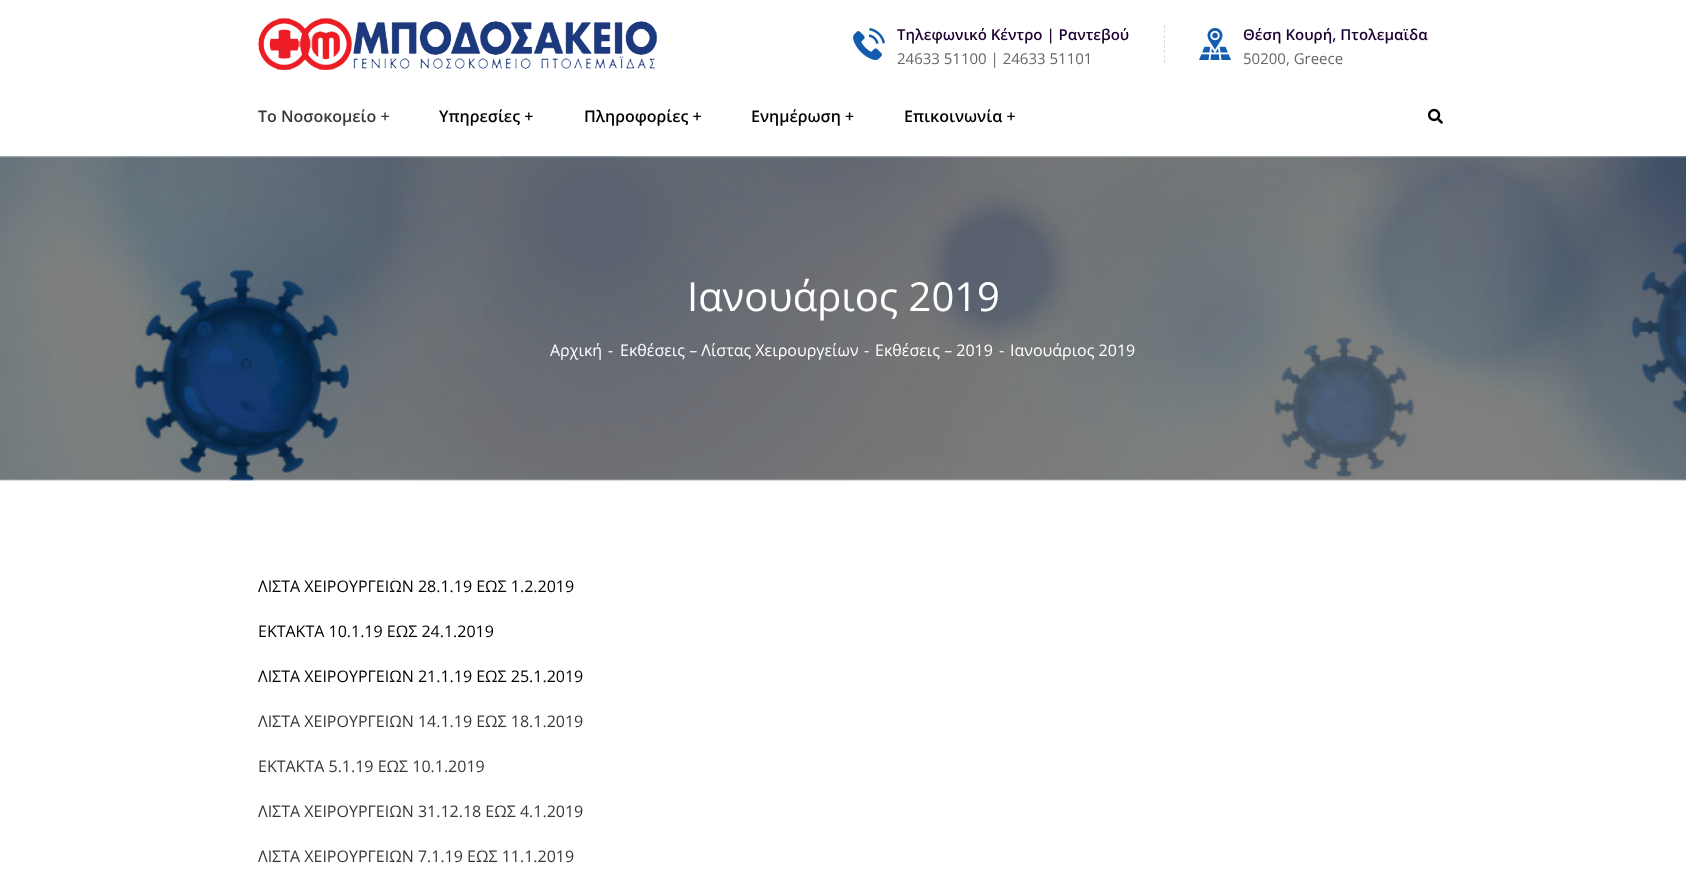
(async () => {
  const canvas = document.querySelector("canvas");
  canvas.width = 1686;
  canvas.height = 888;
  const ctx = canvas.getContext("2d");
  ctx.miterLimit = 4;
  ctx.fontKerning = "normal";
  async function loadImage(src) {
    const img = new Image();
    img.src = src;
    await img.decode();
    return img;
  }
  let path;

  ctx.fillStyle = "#ffffff";
  ctx.fillRect(0, 0, 1686, 888);
  ctx.drawImage(await loadImage("img/1.png"), 258, 18, 399, 52);
  ctx.drawImage(await loadImage("img/2.png"), 853, 28, 32, 32);
  path = new Path2D("M1164.5 25V63");
  ctx.strokeStyle = "#dcdcdc";
  ctx.setLineDash([3, 2]);
  ctx.stroke(path);
  ctx.drawImage(await loadImage("img/3.png"), 1199, 28, 32, 32);
  ctx.drawImage(await loadImage("img/4.png"), 1428, 108, 15, 16);
  ctx.drawImage(await loadImage("img/5.png"), 0, 156, 1686, 325);
  ctx.font = "600 15px Open Sans";
  ctx.fillStyle = "#1d0031";
  ctx.fillText("Τηλεφωνικό Κέντρο | Ραντεβού", 897, 40);
  ctx.font = "15px Open Sans";
  ctx.fillStyle = "#666666";
  ctx.fillText("24633 51100 | 24633 51101", 897, 64);
  ctx.font = "600 15px Open Sans";
  ctx.fillStyle = "#1d0031";
  ctx.fillText("Θέση Κουρή, Πτολεμαϊδα", 1243, 40);
  ctx.font = "15px Open Sans";
  ctx.fillStyle = "#666666";
  ctx.fillText("50200, Greece", 1243, 64);
  ctx.font = "600 16px Open Sans";
  ctx.fillStyle = "#383838";
  ctx.fillText("Το Νοσοκομείο +", 258, 122);
  ctx.fillStyle = "#000000";
  for (const [text, x, y] of [
    ["Υπηρεσίες +", 439, 122],
    ["Πληροφορίες +", 584, 122],
    ["Ενημέρωση +", 751, 122],
    ["Επικοινωνία +", 904, 122],
  ]) {
    ctx.fillText(text, x, y);
  }
  ctx.font = "40px Open Sans";
  ctx.fillStyle = "#ffffff";
  ctx.fillText("Ιανουάριος 2019", 687, 311);
  ctx.font = "16px Open Sans";
  for (const [text, x, y] of [
    ["Αρχική", 550, 356],
    ["-", 608, 356],
    ["Εκθέσεις – Λίστας Χειρουργείων", 620, 356],
    ["-", 864, 356],
    ["Εκθέσεις – 2019", 875, 356],
    ["-", 999, 356],
    ["Ιανουάριος 2019", 1010, 356],
  ]) {
    ctx.fillText(text, x, y);
  }
  ctx.fillStyle = "#000000";
  for (const [text, x, y] of [
    ["ΛΙΣΤΑ ΧΕΙΡΟΥΡΓΕΙΩΝ 28.1.19 ΕΩΣ 1.2.2019", 258, 592],
    ["ΕΚΤΑΚΤΑ 10.1.19 ΕΩΣ 24.1.2019", 258, 637],
    ["ΛΙΣΤΑ ΧΕΙΡΟΥΡΓΕΙΩΝ 21.1.19 ΕΩΣ 25.1.2019", 258, 682],
  ]) {
    ctx.fillText(text, x, y);
  }
  ctx.fillStyle = "#383838";
  for (const [text, x, y] of [
    ["ΛΙΣΤΑ ΧΕΙΡΟΥΡΓΕΙΩΝ 14.1.19 ΕΩΣ 18.1.2019", 258, 727],
    ["ΕΚΤΑΚΤΑ 5.1.19 ΕΩΣ 10.1.2019", 258, 772],
    ["ΛΙΣΤΑ ΧΕΙΡΟΥΡΓΕΙΩΝ 31.12.18 ΕΩΣ 4.1.2019", 258, 817],
    ["ΛΙΣΤΑ ΧΕΙΡΟΥΡΓΕΙΩΝ 7.1.19 ΕΩΣ 11.1.2019", 258, 862],
  ]) {
    ctx.fillText(text, x, y);
  }
})();
